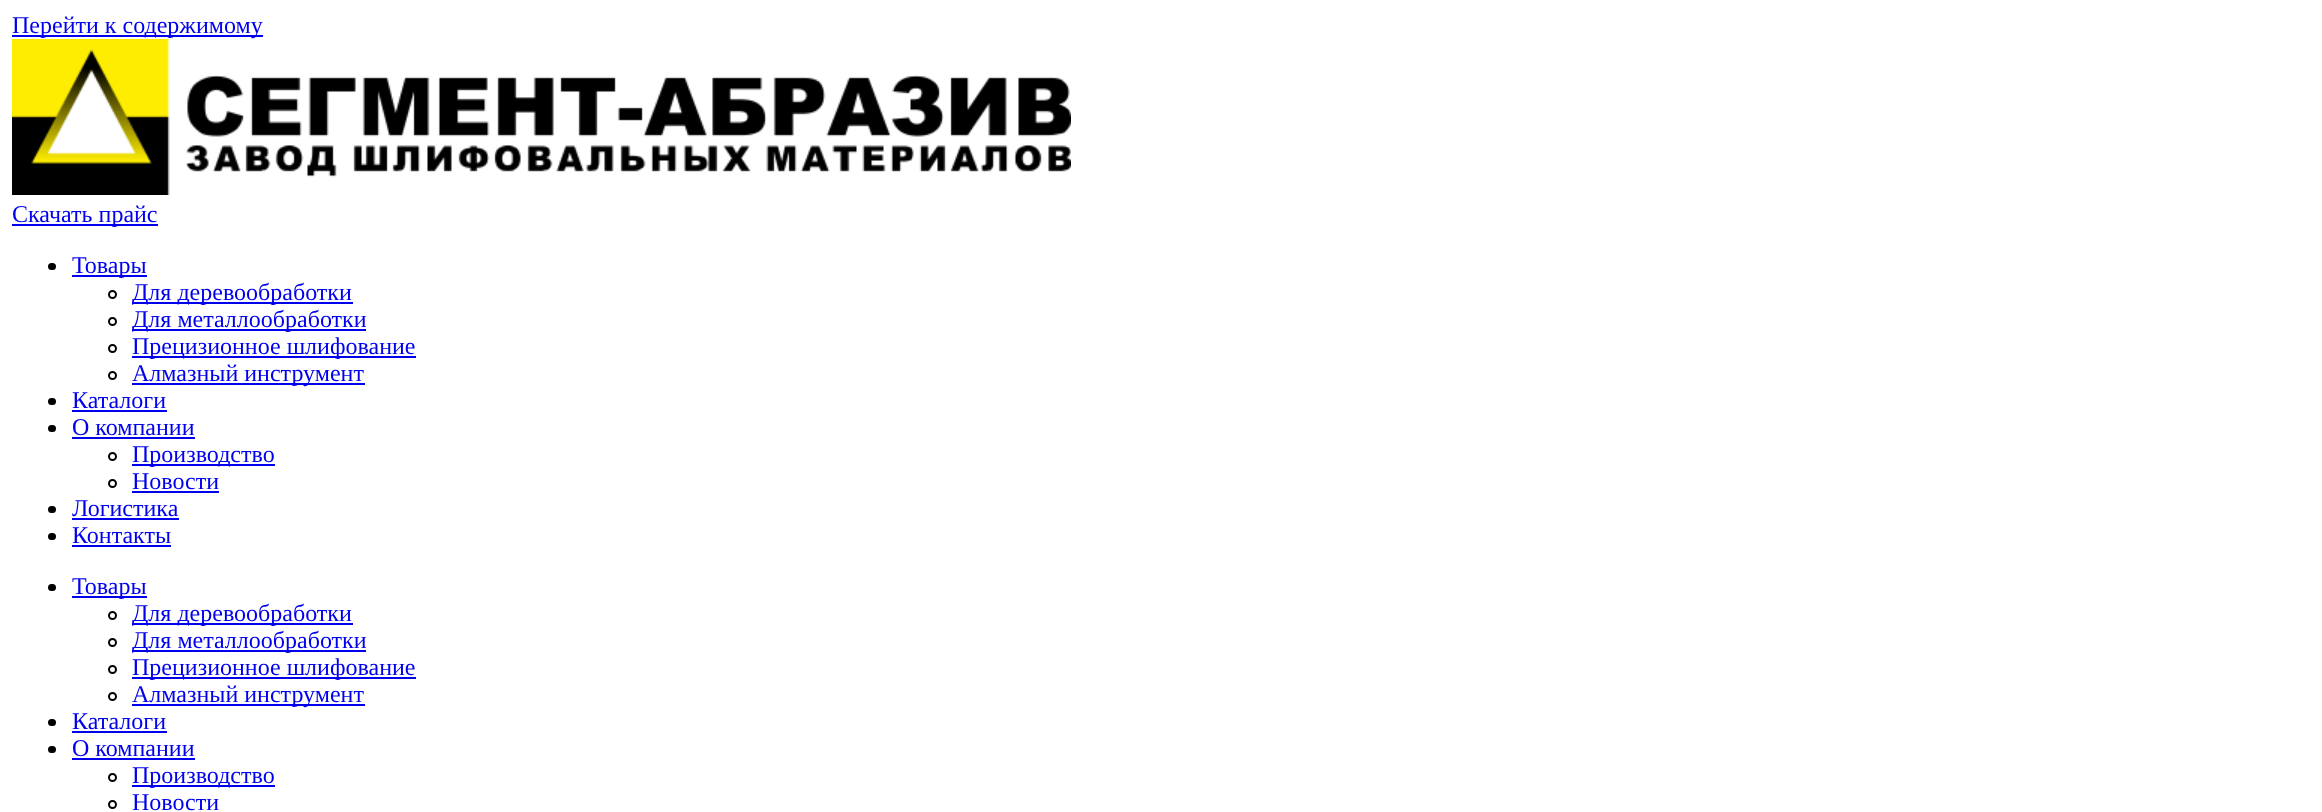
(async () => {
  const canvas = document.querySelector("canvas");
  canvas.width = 2322;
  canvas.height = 812;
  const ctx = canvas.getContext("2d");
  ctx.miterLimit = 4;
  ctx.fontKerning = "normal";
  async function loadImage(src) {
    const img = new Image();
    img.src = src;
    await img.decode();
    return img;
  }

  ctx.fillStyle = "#ffffff";
  ctx.fillRect(0, 0, 2322, 812);
  ctx.fillStyle = "#0000ee";
  ctx.fillRect(12, 35, 251, 2);
  ctx.drawImage(await loadImage("img/1.png"), 12, 39, 1059, 156);
  ctx.fillRect(12, 224, 146, 2);
  ctx.fillStyle = "#000000";
  ctx.beginPath();
  ctx.roundRect(48, 263, 8, 7, 3.5);
  ctx.fill();
  ctx.fillStyle = "#0000ee";
  ctx.fillRect(72, 275, 75, 2);
  ctx.beginPath();
  ctx.arc(112.5, 294.5, 3.5, 0, Math.PI * 2);
  ctx.strokeStyle = "#000000";
  ctx.lineWidth = 2;
  ctx.stroke();
  ctx.fillRect(132, 302, 221, 2);
  ctx.beginPath();
  ctx.arc(112.5, 321.5, 3.5, 0, Math.PI * 2);
  ctx.stroke();
  ctx.fillRect(132, 329, 234, 2);
  ctx.beginPath();
  ctx.arc(112.5, 348.5, 3.5, 0, Math.PI * 2);
  ctx.stroke();
  ctx.fillRect(132, 356, 284, 2);
  ctx.beginPath();
  ctx.arc(112.5, 375.5, 3.5, 0, Math.PI * 2);
  ctx.stroke();
  ctx.fillRect(132, 383, 233, 2);
  ctx.fillStyle = "#000000";
  ctx.beginPath();
  ctx.roundRect(48, 398, 8, 7, 3.5);
  ctx.fill();
  ctx.fillStyle = "#0000ee";
  ctx.fillRect(72, 410, 95, 2);
  ctx.fillStyle = "#000000";
  ctx.beginPath();
  ctx.roundRect(48, 425, 8, 7, 3.5);
  ctx.fill();
  ctx.fillStyle = "#0000ee";
  ctx.fillRect(72, 437, 123, 2);
  ctx.beginPath();
  ctx.arc(112.5, 456.5, 3.5, 0, Math.PI * 2);
  ctx.stroke();
  ctx.fillRect(132, 464, 143, 2);
  ctx.beginPath();
  ctx.arc(112.5, 483.5, 3.5, 0, Math.PI * 2);
  ctx.stroke();
  ctx.fillRect(132, 491, 87, 2);
  ctx.fillStyle = "#000000";
  ctx.beginPath();
  ctx.roundRect(48, 506, 8, 7, 3.5);
  ctx.fill();
  ctx.fillStyle = "#0000ee";
  ctx.fillRect(72, 518, 107, 2);
  ctx.fillStyle = "#000000";
  ctx.beginPath();
  ctx.roundRect(48, 533, 8, 7, 3.5);
  ctx.fill();
  ctx.fillStyle = "#0000ee";
  ctx.fillRect(72, 545, 99, 2);
  ctx.fillStyle = "#000000";
  ctx.beginPath();
  ctx.roundRect(48, 584, 8, 7, 3.5);
  ctx.fill();
  ctx.fillStyle = "#0000ee";
  ctx.fillRect(72, 596, 75, 2);
  ctx.beginPath();
  ctx.arc(112.5, 615.5, 3.5, 0, Math.PI * 2);
  ctx.stroke();
  ctx.fillRect(132, 623, 221, 2);
  ctx.beginPath();
  ctx.arc(112.5, 642.5, 3.5, 0, Math.PI * 2);
  ctx.stroke();
  ctx.fillRect(132, 650, 234, 2);
  ctx.beginPath();
  ctx.arc(112.5, 669.5, 3.5, 0, Math.PI * 2);
  ctx.stroke();
  ctx.fillRect(132, 677, 284, 2);
  ctx.beginPath();
  ctx.arc(112.5, 696.5, 3.5, 0, Math.PI * 2);
  ctx.stroke();
  ctx.fillRect(132, 704, 233, 2);
  ctx.fillStyle = "#000000";
  ctx.beginPath();
  ctx.roundRect(48, 719, 8, 7, 3.5);
  ctx.fill();
  ctx.fillStyle = "#0000ee";
  ctx.fillRect(72, 731, 95, 2);
  ctx.fillStyle = "#000000";
  ctx.beginPath();
  ctx.roundRect(48, 746, 8, 7, 3.5);
  ctx.fill();
  ctx.fillStyle = "#0000ee";
  ctx.fillRect(72, 758, 123, 2);
  ctx.beginPath();
  ctx.arc(112.5, 777.5, 3.5, 0, Math.PI * 2);
  ctx.stroke();
  ctx.fillRect(132, 785, 143, 2);
  ctx.beginPath();
  ctx.arc(112.5, 804.5, 3.5, 0, Math.PI * 2);
  ctx.stroke();
  ctx.font = "24px Liberation Serif";
  for (const [text, x, y] of [
    ["Перейти к содержимому", 12, 33],
    ["Скачать прайс", 12, 222],
    ["Товары", 72, 273],
    ["Для деревообработки", 132, 300],
    ["Для металлообработки", 132, 327],
    ["Прецизионное шлифование", 132, 354],
    ["Алмазный инструмент", 132, 381],
    ["Каталоги", 72, 408],
    ["О компании", 72, 435],
    ["Производство", 132, 462],
    ["Новости", 132, 489],
    ["Логистика", 72, 516],
    ["Контакты", 72, 543],
    ["Товары", 72, 594],
    ["Для деревообработки", 132, 621],
    ["Для металлообработки", 132, 648],
    ["Прецизионное шлифование", 132, 675],
    ["Алмазный инструмент", 132, 702],
    ["Каталоги", 72, 729],
    ["О компании", 72, 756],
    ["Производство", 132, 783],
    ["Новости", 132, 810],
  ]) {
    ctx.fillText(text, x, y);
  }
})();
